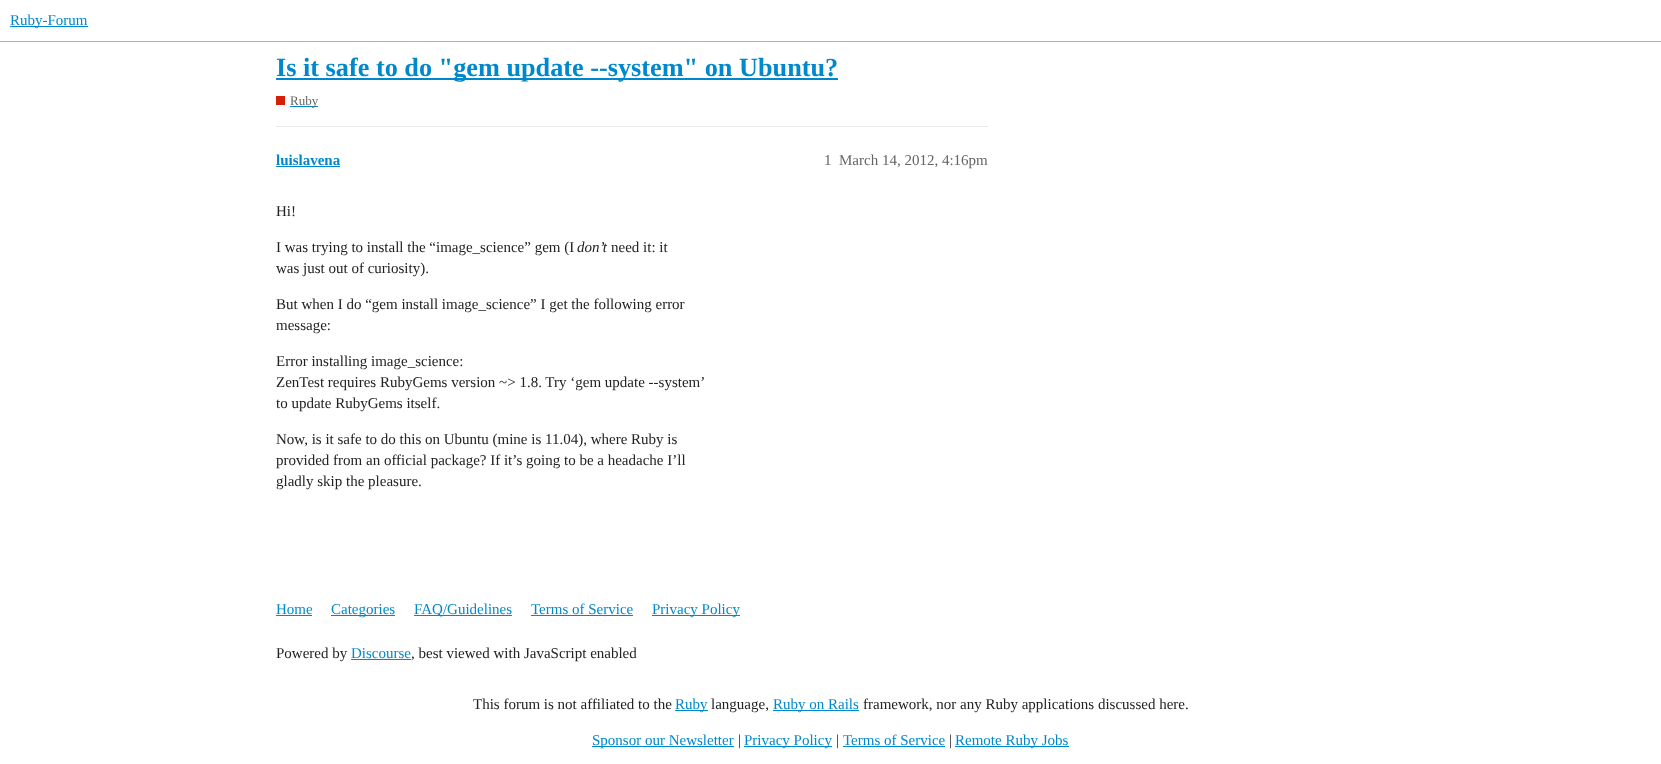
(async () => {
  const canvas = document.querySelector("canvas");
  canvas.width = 1661;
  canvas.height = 764;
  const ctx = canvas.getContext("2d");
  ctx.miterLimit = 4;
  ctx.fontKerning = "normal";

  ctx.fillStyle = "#ffffff";
  ctx.fillRect(0, 0, 1661, 764);
  for (const [x, y, w, h, color] of [
    [0, 41, 1661, 1, "#afafaf"],
    [10, 26, 78, 1, "#0088cc"],
    [276, 78, 562, 2, "#0088cc"],
    [276, 96, 9, 9, "#d51f06"],
    [290, 106, 28, 1, "#0088cc"],
    [276, 126, 712, 1, "#e9e9e9"],
    [276, 166, 64, 1, "#0088cc"],
    [276, 615, 36, 1, "#0088cc"],
    [331, 615, 64, 1, "#0088cc"],
    [414, 615, 98, 1, "#0088cc"],
    [531, 615, 102, 1, "#0088cc"],
    [652, 615, 88, 1, "#0088cc"],
    [351, 659, 60, 1, "#0088cc"],
    [675, 710, 33, 1, "#0088cc"],
    [773, 710, 86, 1, "#0088cc"],
    [592, 746, 142, 1, "#0088cc"],
    [744, 746, 88, 1, "#0088cc"],
    [843, 746, 102, 1, "#0088cc"],
    [955, 746, 114, 1, "#0088cc"],
  ]) {
    ctx.fillStyle = color;
    ctx.fillRect(x, y, w, h);
  }
  ctx.font = "15px Liberation Serif";
  ctx.fillText("Ruby-Forum", 10, 25);
  ctx.font = "bold 26.25px Liberation Serif";
  ctx.fillText("Is it safe to do \"gem update --system\" on Ubuntu?", 276, 76);
  ctx.font = "13px Liberation Serif";
  ctx.fillStyle = "#646464";
  ctx.fillText("Ruby", 290, 105);
  ctx.font = "bold 15px Liberation Serif";
  ctx.fillStyle = "#0088cc";
  ctx.fillText("luislavena", 276, 165);
  ctx.font = "15px Liberation Serif";
  ctx.fillStyle = "#646464";
  ctx.fillText("1", 824, 165);
  ctx.fillText("March 14, 2012, 4:16pm", 839, 165);
  ctx.fillStyle = "#222222";
  ctx.fillText("Hi!", 276, 216);
  ctx.fillText("I was trying to install the “image_science” gem (I", 276, 252);
  ctx.font = "italic 15px Liberation Serif";
  ctx.fillText("don’t", 577, 252);
  ctx.font = "15px Liberation Serif";
  for (const [text, x, y] of [
    ["need it: it", 611, 252],
    ["was just out of curiosity).", 276, 273],
    ["But when I do “gem install image_science” I get the following error", 276, 309],
    ["message:", 276, 330],
    ["Error installing image_science:", 276, 366],
    ["ZenTest requires RubyGems version ~> 1.8. Try ‘gem update --system’", 276, 387],
    ["to update RubyGems itself.", 276, 408],
    ["Now, is it safe to do this on Ubuntu (mine is 11.04), where Ruby is", 276, 444],
    ["provided from an official package? If it’s going to be a headache I’ll", 276, 465],
    ["gladly skip the pleasure.", 276, 486],
  ]) {
    ctx.fillText(text, x, y);
  }
  ctx.fillStyle = "#0088cc";
  for (const [text, x, y] of [
    ["Home", 276, 614],
    ["Categories", 331, 614],
    ["FAQ/Guidelines", 414, 614],
    ["Terms of Service", 531, 614],
    ["Privacy Policy", 652, 614],
  ]) {
    ctx.fillText(text, x, y);
  }
  ctx.fillStyle = "#222222";
  ctx.fillText("Powered by", 276, 658);
  ctx.fillStyle = "#0088cc";
  ctx.fillText("Discourse", 351, 658);
  ctx.fillStyle = "#222222";
  ctx.fillText(", best viewed with JavaScript enabled", 411, 658);
  ctx.fillText("This forum is not affiliated to the", 473, 709);
  ctx.fillStyle = "#0088cc";
  ctx.fillText("Ruby", 675, 709);
  ctx.fillStyle = "#222222";
  ctx.fillText("language,", 711, 709);
  ctx.fillStyle = "#0088cc";
  ctx.fillText("Ruby on Rails", 773, 709);
  ctx.fillStyle = "#222222";
  ctx.fillText("framework, nor any Ruby applications discussed here.", 863, 709);
  ctx.fillStyle = "#0088cc";
  ctx.fillText("Sponsor our Newsletter", 592, 745);
  ctx.fillStyle = "#222222";
  ctx.fillText("|", 738, 745);
  ctx.fillStyle = "#0088cc";
  ctx.fillText("Privacy Policy", 744, 745);
  ctx.fillStyle = "#222222";
  ctx.fillText("|", 836, 745);
  ctx.fillStyle = "#0088cc";
  ctx.fillText("Terms of Service", 843, 745);
  ctx.fillStyle = "#222222";
  ctx.fillText("|", 949, 745);
  ctx.fillStyle = "#0088cc";
  ctx.fillText("Remote Ruby Jobs", 955, 745);
})();
